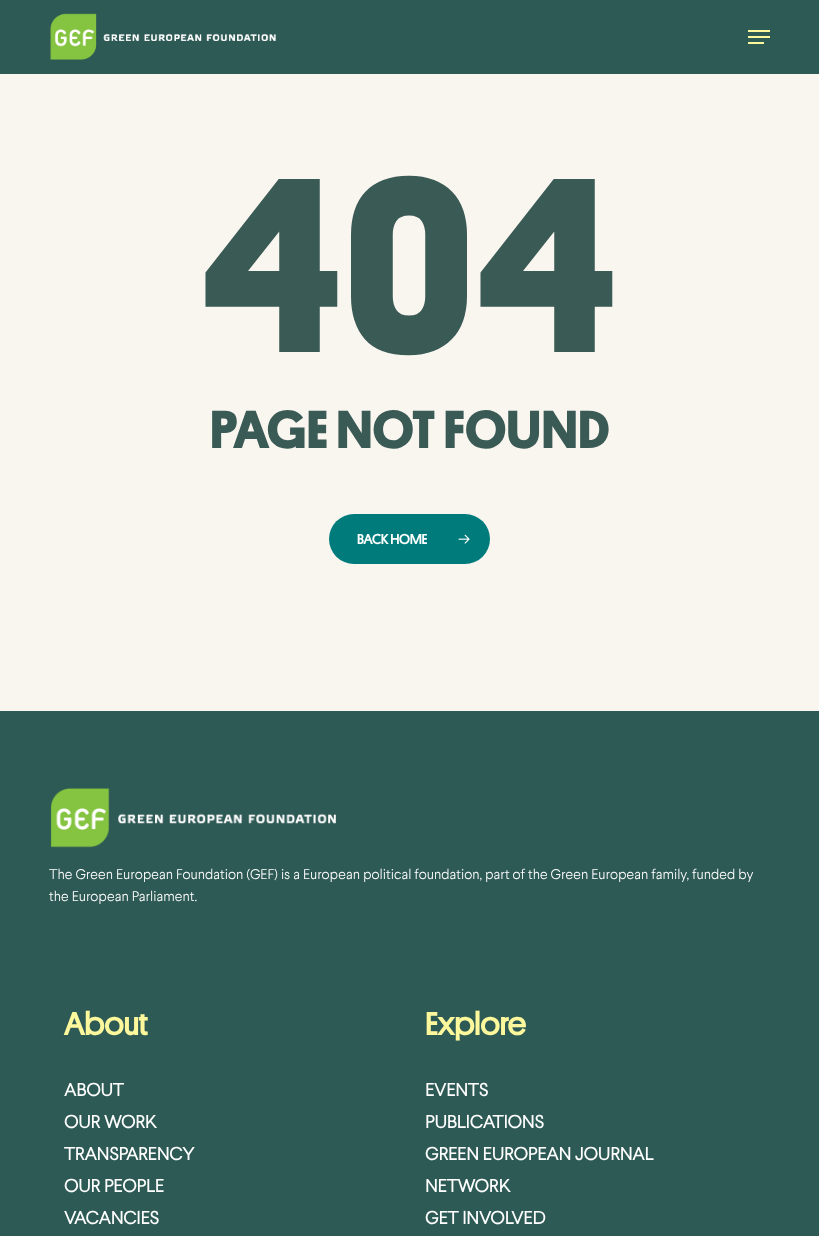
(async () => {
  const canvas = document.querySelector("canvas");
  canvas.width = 819;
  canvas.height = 1236;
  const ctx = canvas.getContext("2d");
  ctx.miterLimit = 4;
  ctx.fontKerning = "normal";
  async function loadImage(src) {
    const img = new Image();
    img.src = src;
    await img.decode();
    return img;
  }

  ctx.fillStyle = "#f9f5ef";
  ctx.fillRect(0, 0, 819, 1236);
  ctx.fillStyle = "#2e5a55";
  ctx.fillRect(0, 0, 819, 74);
  ctx.drawImage(await loadImage("img/1.png"), 50, 13, 226, 47);
  for (const [x, y, w, h, color] of [
    [748, 30, 22, 2, "#fef89d"],
    [748, 42, 16, 2, "#fef89d"],
    [748, 36, 22, 2, "#fef89d"],
  ]) {
    ctx.fillStyle = color;
    ctx.fillRect(x, y, w, h);
  }
  ctx.fillStyle = "#007b7c";
  ctx.beginPath();
  ctx.roundRect(329, 514, 161, 50, 25);
  ctx.fill();
  ctx.drawImage(await loadImage("img/2.png"), 458, 534, 12, 10);
  ctx.fillStyle = "#2e5a55";
  ctx.fillRect(0, 711, 819, 525);
  ctx.drawImage(await loadImage("img/3.png"), 50, 788, 286, 60);
  ctx.font = "bold 250px 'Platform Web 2'";
  ctx.fillStyle = "#3a5a55";
  ctx.fillText("404", 202, 352);
  ctx.font = "bold 54px 'Platform Web 2'";
  ctx.fillText("PAGE NOT FOUND", 210, 448);
  ctx.font = "bold 14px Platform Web";
  ctx.fillStyle = "#ffffff";
  ctx.fillText("BACK HOME", 357, 544);
  ctx.font = "300 14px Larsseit";
  ctx.fillText("The Green European Foundation (GEF) is a European political foundation, part of the Green European family, funded by", 49, 879);
  ctx.fillText("the European Parliament.", 49, 901);
  ctx.font = "bold 32px Platform Web";
  ctx.fillStyle = "#fef89d";
  ctx.fillText("About", 64, 1035);
  ctx.font = "bold 18px Larsseit";
  ctx.fillStyle = "#ffffff";
  for (const [text, x, y] of [
    ["ABOUT", 64, 1096],
    ["OUR WORK", 64, 1128],
    ["TRANSPARENCY", 64, 1160],
    ["OUR PEOPLE", 64, 1192],
    ["VACANCIES", 64, 1224],
  ]) {
    ctx.fillText(text, x, y);
  }
  ctx.font = "bold 32px Platform Web";
  ctx.fillStyle = "#fef89d";
  ctx.fillText("Explore", 425, 1035);
  ctx.font = "bold 18px Larsseit";
  ctx.fillStyle = "#ffffff";
  for (const [text, x, y] of [
    ["EVENTS", 425, 1096],
    ["PUBLICATIONS", 425, 1128],
    ["GREEN EUROPEAN JOURNAL", 425, 1160],
    ["NETWORK", 425, 1192],
    ["GET INVOLVED", 425, 1224],
  ]) {
    ctx.fillText(text, x, y);
  }
})();
